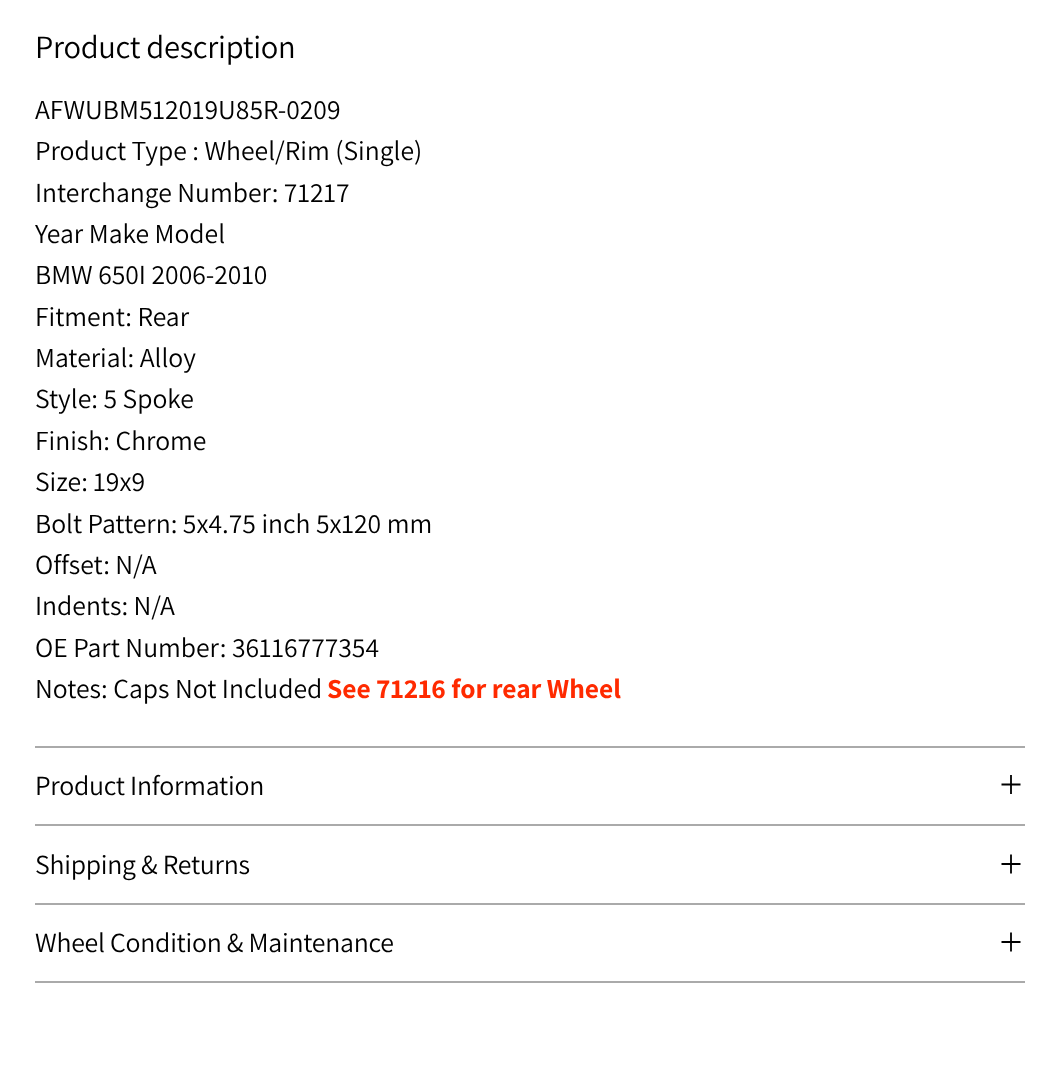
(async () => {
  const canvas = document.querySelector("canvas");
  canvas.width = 1059;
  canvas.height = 1067;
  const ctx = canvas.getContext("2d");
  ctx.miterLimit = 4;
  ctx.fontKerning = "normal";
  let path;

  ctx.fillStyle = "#ffffff";
  ctx.fillRect(0, 0, 1059, 1067);
  ctx.fillStyle = "#aaaaaa";
  ctx.fillRect(35, 746, 990, 2);
  ctx.fillRect(35, 824, 990, 2);
  path = new Path2D("M1001.5 784.5H1011M1020.5 784.5H1011M1011 784.5V775M1011 784.5V794");
  ctx.strokeStyle = "#000000";
  ctx.lineWidth = 1.8;
  ctx.stroke(path);
  ctx.fillRect(35, 903, 990, 2);
  path = new Path2D("M1001.5 864H1011M1020.5 864H1011M1011 864V854.5M1011 864V873.5");
  ctx.stroke(path);
  ctx.fillRect(35, 981, 990, 2);
  path = new Path2D("M1001.5 942H1011M1020.5 942H1011M1011 942V932.5M1011 942V951.5");
  ctx.stroke(path);
  ctx.letterSpacing = "-0.3px";
  ctx.font = "32.5px Assistant";
  ctx.fillStyle = "#000000";
  ctx.fillText("Product description", 35, 58);
  ctx.letterSpacing = "0px";
  ctx.font = "27.6px Assistant";
  for (const [text, x, y] of [
    ["AFWUBM512019U85R-0209", 35, 119],
    ["Product Type : Wheel/Rim (Single)", 35, 160],
    ["Interchange Number: 71217", 35, 202],
    ["Year Make Model", 35, 243],
    ["BMW 650I 2006-2010", 35, 284],
    ["Fitment: Rear", 35, 326],
    ["Material: Alloy", 35, 367],
    ["Style: 5 Spoke", 35, 408],
    ["Finish: Chrome", 35, 450],
    ["Size: 19x9", 35, 491],
    ["Bolt Pattern: 5x4.75 inch 5x120 mm", 35, 533],
    ["Offset: N/A", 35, 574],
    ["Indents: N/A", 35, 615],
    ["OE Part Number: 36116777354", 35, 657],
    ["Notes: Caps Not Included", 35, 698],
  ]) {
    ctx.fillText(text, x, y);
  }
  ctx.font = "bold 27.6px Assistant";
  ctx.fillStyle = "#ff2a00";
  ctx.fillText("See 71216 for rear Wheel", 327, 698);
  ctx.letterSpacing = "-0.25px";
  ctx.font = "27.75px Assistant";
  ctx.fillStyle = "#000000";
  for (const [text, x, y] of [
    ["Product Information", 35, 795],
    ["Shipping & Returns", 35, 874],
    ["Wheel Condition & Maintenance", 35, 952],
  ]) {
    ctx.fillText(text, x, y);
  }
})();
